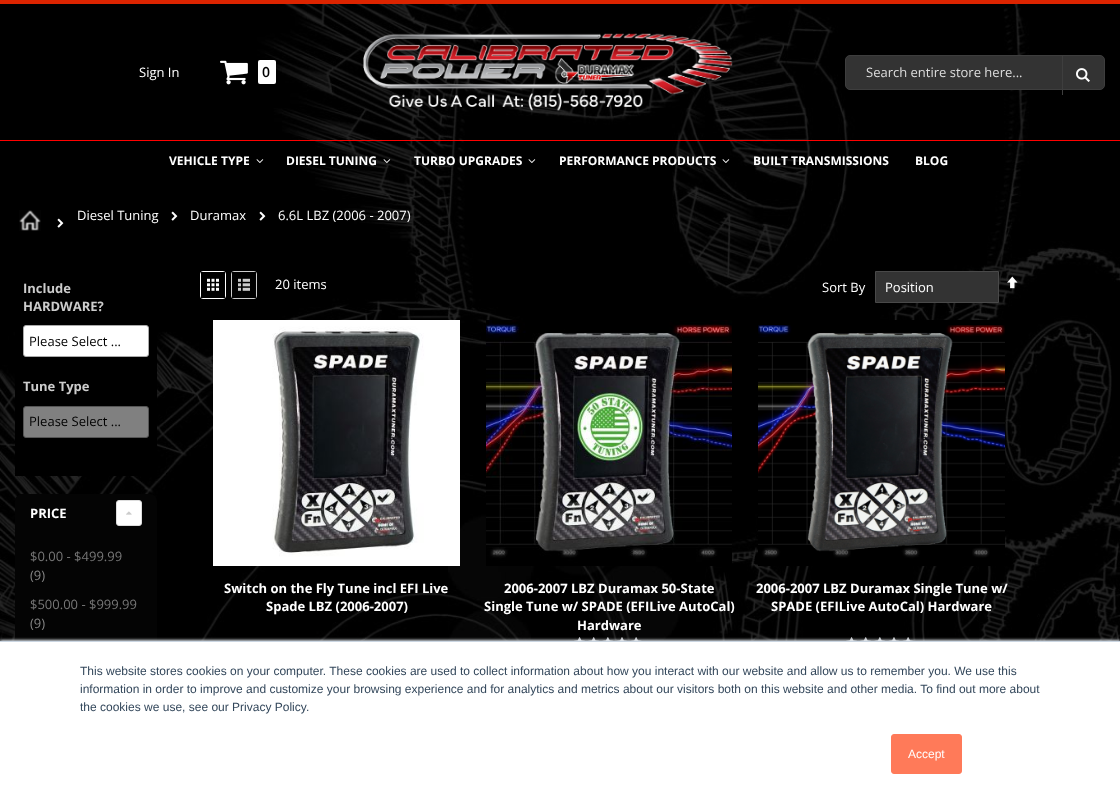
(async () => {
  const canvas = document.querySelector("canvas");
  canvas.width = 1120;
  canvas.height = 800;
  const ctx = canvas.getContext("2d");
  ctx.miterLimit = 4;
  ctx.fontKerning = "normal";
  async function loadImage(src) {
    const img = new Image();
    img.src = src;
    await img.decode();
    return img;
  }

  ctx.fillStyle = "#ffffff";
  ctx.fillRect(0, 0, 1120, 800);
  ctx.drawImage(await loadImage("img/1.png"), 0, 4, 1120, 637);
  ctx.fillStyle = "#dc2400";
  ctx.fillRect(0, 0, 1120, 4);
  ctx.drawImage(await loadImage("img/2.png"), 220, 60, 28, 25);
  ctx.fillStyle = "#ffffff";
  ctx.beginPath();
  ctx.roundRect(258, 60, 18, 24, 2);
  ctx.fill();
  ctx.drawImage(await loadImage("img/3.png"), 363, 33, 370, 78);
  ctx.fillStyle = "#333333";
  ctx.beginPath();
  ctx.roundRect(845.5, 55.5, 259, 34, 4.5);
  ctx.fill();
  ctx.strokeStyle = "#3e3e3e";
  ctx.stroke();
  ctx.fillStyle = "#3e3e3e";
  ctx.fillRect(1062, 55, 1, 40);
  ctx.drawImage(await loadImage("img/4.png"), 1076, 68, 14, 14);
  ctx.fillStyle = "#ff0000";
  ctx.fillRect(0, 140, 1120, 1);
  ctx.drawImage(await loadImage("img/5.png"), 256, 159, 8, 4);
  ctx.drawImage(await loadImage("img/6.png"), 383, 159, 8, 4);
  ctx.drawImage(await loadImage("img/5.png"), 528, 159, 8, 4);
  ctx.drawImage(await loadImage("img/5.png"), 722, 159, 8, 4);
  ctx.drawImage(await loadImage("img/7.png"), 19, 210, 22, 21);
  ctx.drawImage(await loadImage("img/8.png"), 57, 218, 7, 10);
  ctx.drawImage(await loadImage("img/8.png"), 171, 211, 7, 10);
  ctx.drawImage(await loadImage("img/8.png"), 259, 211, 7, 10);
  ctx.fillStyle = "#000000";
  ctx.fillRect(15, 310, 142, 166);
  ctx.fillStyle = "#ffffff";
  ctx.beginPath();
  ctx.roundRect(23.5, 325.5, 125, 31, 2.5);
  ctx.fill();
  ctx.strokeStyle = "#aaaaaa";
  ctx.stroke();
  ctx.fillStyle = "#808080";
  ctx.beginPath();
  ctx.roundRect(23.5, 406.5, 125, 31, 2.5);
  ctx.fill();
  ctx.strokeStyle = "#555555";
  ctx.stroke();
  ctx.fillStyle = "#040404";
  ctx.beginPath();
  ctx.roundRect(15, 494, 142, 38, [7, 7, 0, 0]);
  ctx.fill();
  ctx.fillStyle = "#ffffff";
  ctx.beginPath();
  ctx.roundRect(116.5, 500.5, 25, 25, 2.5);
  ctx.fill();
  ctx.strokeStyle = "#dddddd";
  ctx.stroke();
  ctx.drawImage(await loadImage("img/9.png"), 126, 511, 6, 4);
  ctx.fillStyle = "#040404";
  ctx.fillRect(15, 532, 142, 109);
  ctx.beginPath();
  ctx.roundRect(200.5, 271.5, 25, 27, 2.5);
  ctx.strokeStyle = "#ffffff";
  ctx.stroke();
  ctx.fillStyle = "#000000";
  ctx.fillRect(201, 272, 24, 26);
  ctx.drawImage(await loadImage("img/10.png"), 207, 278, 12, 13);
  ctx.beginPath();
  ctx.roundRect(231.5, 271.5, 25, 27, 2.5);
  ctx.strokeStyle = "#cccccc";
  ctx.stroke();
  ctx.fillRect(232, 272, 24, 26);
  ctx.drawImage(await loadImage("img/11.png"), 238, 278, 12, 13);
  ctx.fillStyle = "#333333";
  ctx.beginPath();
  ctx.rect(875.5, 271.5, 123, 31);
  ctx.fill();
  ctx.strokeStyle = "#494949";
  ctx.stroke();
  ctx.drawImage(await loadImage("img/12.png"), 1007, 276, 11, 13);
  ctx.drawImage(await loadImage("img/13.png"), 213, 320, 247, 246);
  ctx.drawImage(await loadImage("img/14.png"), 486, 320, 246, 246);
  ctx.drawImage(await loadImage("img/15.png"), 574, 637, 68, 4);
  ctx.drawImage(await loadImage("img/16.png"), 758, 320, 247, 246);
  ctx.drawImage(await loadImage("img/17.png"), 846, 637, 68, 4);
  ctx.fillStyle = "#eaf0f6";
  ctx.filter = "blur(1.5px)";
  ctx.beginPath();
  ctx.rect(0, 640, 1120, 159);
  ctx.fill();
  ctx.filter = "none";
  ctx.fillStyle = "#ffffff";
  ctx.fillRect(0, 642, 1120, 158);
  ctx.fillStyle = "#cbd6e2";
  ctx.fillRect(0, 641, 1120, 1);
  ctx.fillStyle = "#ff7a59";
  ctx.beginPath();
  ctx.roundRect(891.5, 734.5, 70, 39, 2.5);
  ctx.fill();
  ctx.strokeStyle = "#ff7a59";
  ctx.stroke();
  ctx.font = "13px Open Sans";
  ctx.fillStyle = "#ffffff";
  ctx.fillText("Sign In", 139, 77);
  ctx.font = "600 14px Open Sans";
  ctx.fillStyle = "#000000";
  ctx.fillText("0", 262, 77);
  ctx.font = "13px Open Sans";
  ctx.fillStyle = "#dddddd";
  ctx.fillText("Search entire store here...", 866, 77);
  ctx.font = "bold 12px Open Sans";
  ctx.fillStyle = "#ffffff";
  for (const [text, x, y] of [
    ["VEHICLE TYPE", 169, 165],
    ["DIESEL TUNING", 286, 165],
    ["TURBO UPGRADES", 414, 165],
    ["PERFORMANCE PRODUCTS", 559, 165],
    ["BUILT TRANSMISSIONS", 753, 165],
    ["BLOG", 915, 165],
  ]) {
    ctx.fillText(text, x, y);
  }
  ctx.font = "13px Open Sans";
  for (const [text, x, y] of [
    ["Diesel Tuning", 77, 220],
    ["Duramax", 190, 220],
    ["6.6L LBZ (2006 - 2007)", 278, 220],
  ]) {
    ctx.fillText(text, x, y);
  }
  ctx.font = "bold 13px Open Sans";
  ctx.fillStyle = "#cccccc";
  ctx.fillText("Include", 23, 293);
  ctx.fillText("HARDWARE?", 23, 311);
  ctx.font = "13px Open Sans";
  ctx.fillStyle = "#000000";
  ctx.fillText("Please Select ...", 29, 346);
  ctx.font = "bold 13px Open Sans";
  ctx.fillStyle = "#cccccc";
  ctx.fillText("Tune Type", 23, 391);
  ctx.font = "13px Open Sans";
  ctx.fillStyle = "#000000";
  ctx.fillText("Please Select ...", 29, 426);
  ctx.font = "bold 13px Open Sans";
  ctx.fillStyle = "#ffffff";
  ctx.fillText("PRICE", 30, 518);
  ctx.font = "13px Open Sans";
  ctx.fillStyle = "#777777";
  ctx.fillText("$0.00 - $499.99", 30, 561);
  ctx.fillStyle = "#858585";
  ctx.fillText("(9)", 30, 580);
  ctx.fillStyle = "#777777";
  ctx.fillText("$500.00 - $999.99", 30, 609);
  ctx.fillStyle = "#858585";
  ctx.fillText("(9)", 30, 628);
  ctx.fillStyle = "#ffffff";
  for (const [text, x, y] of [
    ["20 items", 275, 289],
    ["Sort By", 822, 292],
    ["Position", 885, 292],
  ]) {
    ctx.fillText(text, x, y);
  }
  ctx.font = "bold 13px Open Sans";
  for (const [text, x, y] of [
    ["Switch on the Fly Tune incl EFI Live", 224, 593],
    ["Spade LBZ (2006-2007)", 266, 611],
    ["2006-2007 LBZ Duramax 50-State", 504, 593],
    ["Single Tune w/ SPADE (EFILive AutoCal)", 484, 611],
    ["Hardware", 577, 630],
    ["2006-2007 LBZ Duramax Single Tune w/", 756, 593],
    ["SPADE (EFILive AutoCal) Hardware", 771, 611],
  ]) {
    ctx.fillText(text, x, y);
  }
  ctx.font = "12px Liberation Sans";
  ctx.fillStyle = "#33475b";
  for (const [text, x, y] of [
    ["This website stores cookies on your computer. These cookies are used to collect information about how you interact with our website and allow us to remember you. We use this", 80, 675],
    ["information in order to improve and customize your browsing experience and for analytics and metrics about our visitors both on this website and other media. To find out more about", 80, 693],
    ["the cookies we use, see our Privacy Policy.", 80, 711],
  ]) {
    ctx.fillText(text, x, y);
  }
  ctx.fillStyle = "#ffffff";
  ctx.fillText("Accept", 908, 758);
})();
